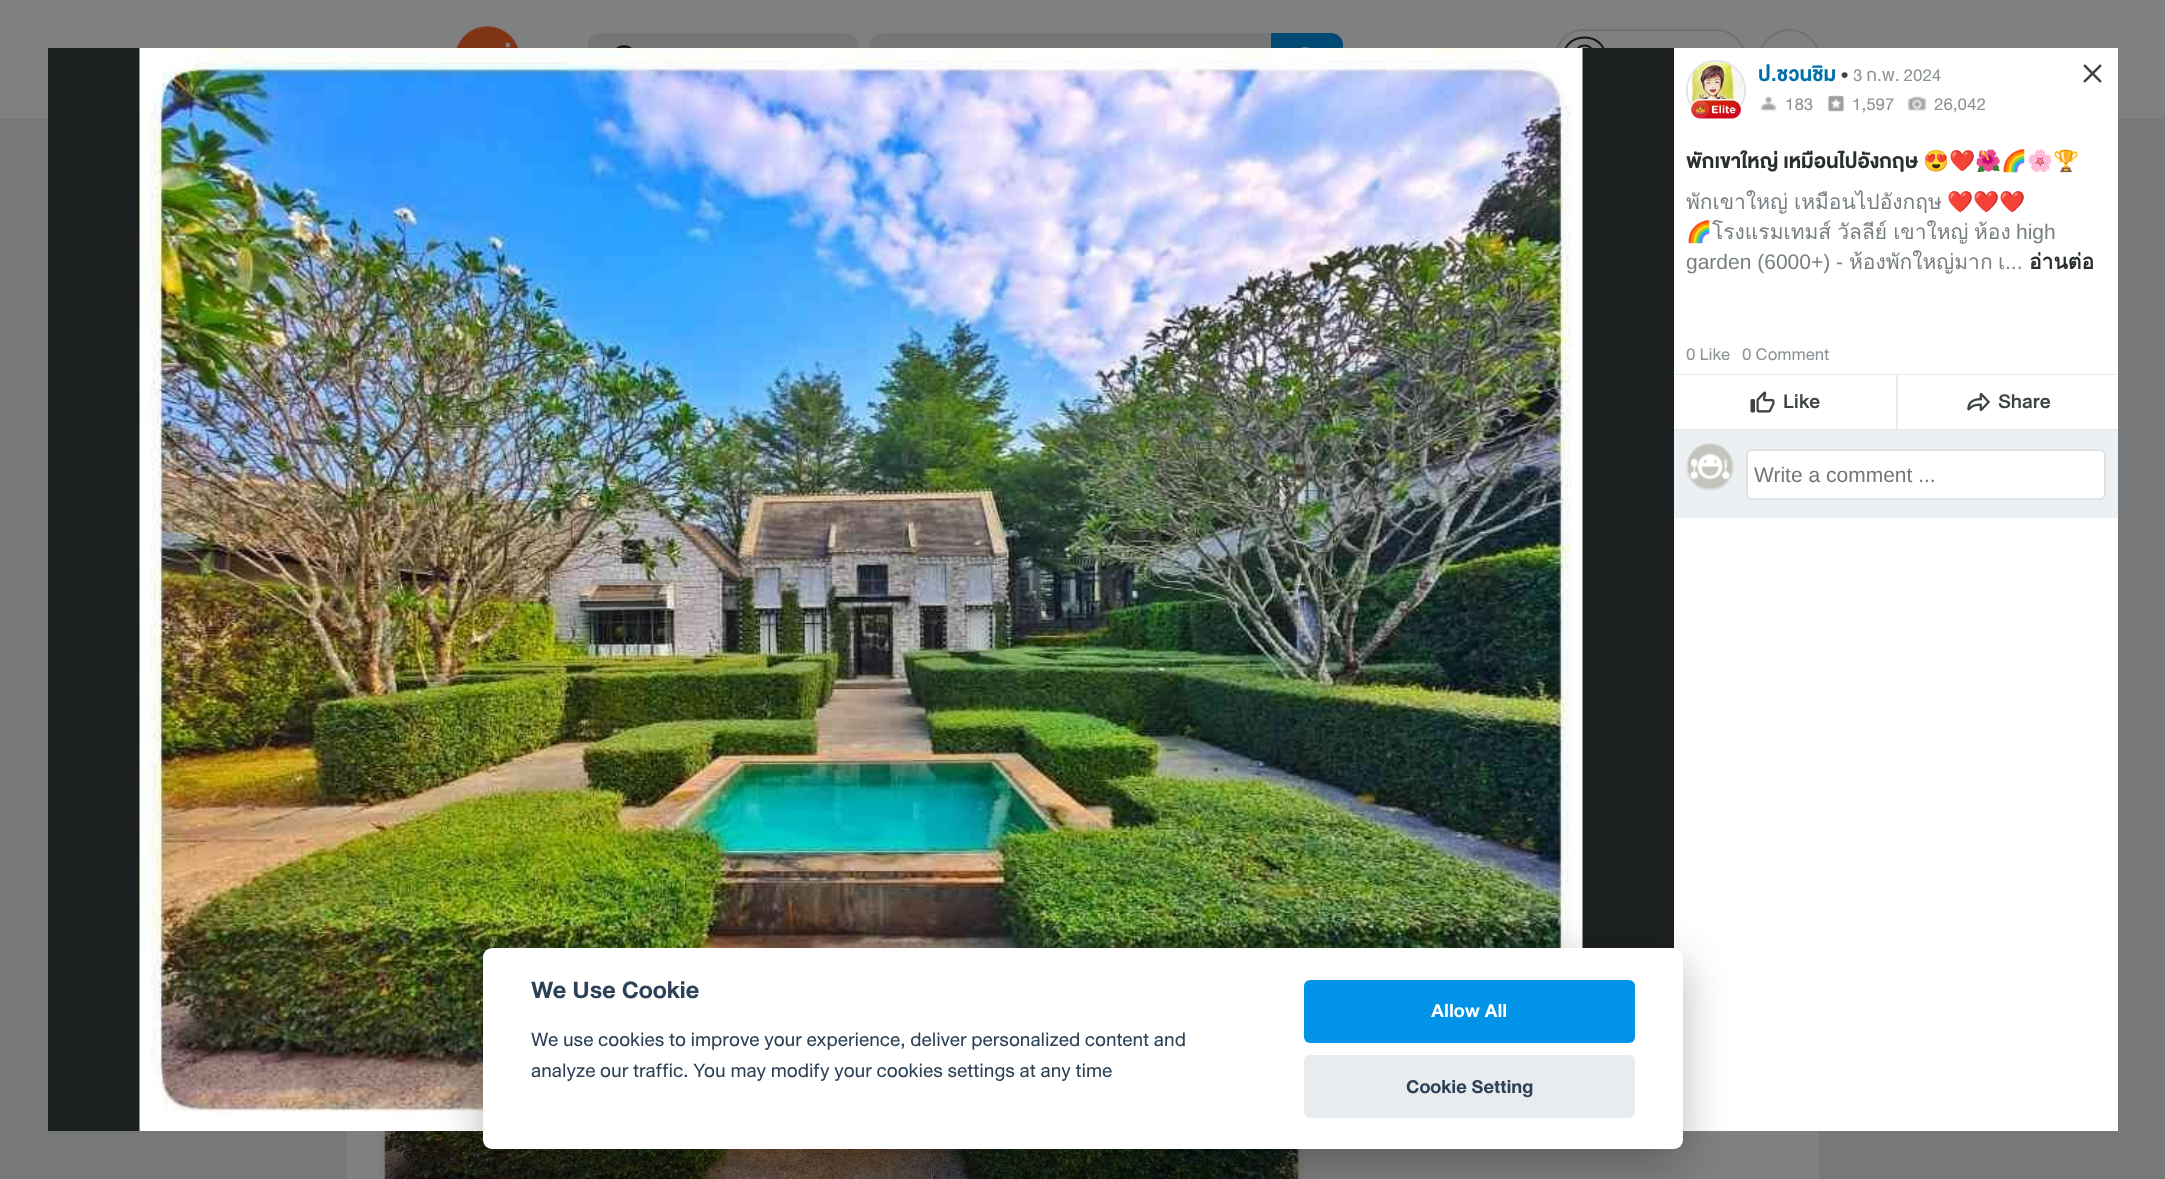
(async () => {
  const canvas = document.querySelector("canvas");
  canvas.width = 2165;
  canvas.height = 1179;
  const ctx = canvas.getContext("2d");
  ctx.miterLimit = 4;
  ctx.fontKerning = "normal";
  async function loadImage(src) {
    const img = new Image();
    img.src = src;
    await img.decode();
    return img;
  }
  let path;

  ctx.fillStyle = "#808080";
  ctx.fillRect(0, 0, 2165, 1179);
  ctx.fillStyle = "#757677";
  ctx.fillRect(0, 119, 2165, 2);
  ctx.drawImage(await loadImage("img/1.png"), 456, 25, 63, 23);
  ctx.beginPath();
  ctx.roundRect(588, 33, 270, 54, 12);
  ctx.fill();
  ctx.drawImage(await loadImage("img/2.png"), 616, 45, 16, 3);
  ctx.beginPath();
  ctx.roundRect(870, 33, 401, 54, [12, 0, 0, 12]);
  ctx.fill();
  ctx.fillStyle = "#004a74";
  ctx.beginPath();
  ctx.roundRect(1271, 33, 72, 54, [0, 12, 12, 0]);
  ctx.fill();
  ctx.drawImage(await loadImage("img/3.png"), 1300, 47, 10, 1);
  ctx.beginPath();
  ctx.roundRect(1555, 30, 190, 61, 29);
  ctx.strokeStyle = "#6f7172";
  ctx.lineWidth = 2;
  ctx.stroke();
  path = new Path2D("M1584.5 82C1613.5 82 1613.5 37.5 1584.5 37.5C1555.5 37.5 1555.5 82 1584.5 82ZM1584.5 62.5C1596 62.5 1596 45.5 1584.5 45.5C1573 45.5 1573 62.5 1584.5 62.5Z");
  ctx.strokeStyle = "#141717";
  ctx.lineWidth = 1.9;
  ctx.stroke(path);
  ctx.beginPath();
  ctx.arc(1789.5, 60.5, 30.5, 0, Math.PI * 2);
  ctx.strokeStyle = "#6f7172";
  ctx.lineWidth = 2;
  ctx.stroke();
  for (const [x, y, w, h, color] of [
    [0, 121, 2165, 1058, "#777879"],
    [347, 1131, 1472, 48, "#808080"],
    [1312, 1149, 1, 30, "#777879"],
  ]) {
    ctx.fillStyle = color;
    ctx.fillRect(x, y, w, h);
  }
  ctx.drawImage(await loadImage("img/4.png"), 370, 1131, 943, 48);
  ctx.fillStyle = "#ffffff";
  ctx.fillRect(1674, 48, 444, 1083);
  ctx.fillStyle = "#1d2021";
  ctx.fillRect(48, 48, 1626, 1083);
  ctx.drawImage(await loadImage("img/5.png"), 139, 48, 1444, 1083);
  ctx.beginPath();
  ctx.arc(1716, 90, 29, 0, Math.PI * 2);
  ctx.strokeStyle = "#dee2e4";
  ctx.stroke();
  ctx.drawImage(await loadImage("img/6.png"), 1687, 61, 58, 44);
  ctx.drawImage(await loadImage("img/7.png"), 1690, 98, 52, 22);
  ctx.drawImage(await loadImage("img/8.png"), 1760, 96, 17, 16);
  ctx.drawImage(await loadImage("img/9.png"), 1828, 95, 16, 17);
  ctx.drawImage(await loadImage("img/10.png"), 1907, 96, 20, 16);
  ctx.fillStyle = "#e9ecee";
  ctx.fillRect(1674, 374, 444, 57);
  ctx.fillStyle = "#ffffff";
  ctx.fillRect(1674, 375, 222, 54);
  ctx.drawImage(await loadImage("img/11.png"), 1750, 391, 25, 22);
  ctx.fillRect(1898, 375, 220, 54);
  ctx.drawImage(await loadImage("img/12.png"), 1967, 392, 23, 20);
  ctx.fillStyle = "#edf0f2";
  ctx.fillRect(1674, 431, 444, 87);
  ctx.beginPath();
  ctx.arc(1710, 467, 23, 0, Math.PI * 2);
  ctx.stroke();
  ctx.drawImage(await loadImage("img/13.png"), 1687, 443, 46, 47);
  ctx.fillStyle = "#ffffff";
  ctx.beginPath();
  ctx.roundRect(1747, 450, 358, 49, 5);
  ctx.fill();
  ctx.stroke();
  ctx.drawImage(await loadImage("img/14.png"), 2083, 64, 19, 19);
  ctx.fillStyle = "rgba(2, 2, 3, 0.28)";
  ctx.filter = "blur(22.5px)";
  ctx.beginPath();
  ctx.roundRect(483, 963, 1200, 201, 9);
  ctx.fill();
  ctx.filter = "none";
  ctx.fillStyle = "#ffffff";
  ctx.beginPath();
  ctx.roundRect(483, 948, 1200, 201, 9);
  ctx.fill();
  ctx.fillStyle = "#0093e8";
  ctx.beginPath();
  ctx.roundRect(1304, 980, 331, 63, 6);
  ctx.fill();
  ctx.fillStyle = "#e9ecee";
  ctx.beginPath();
  ctx.roundRect(1304, 1055, 331, 63, 6);
  ctx.fill();
  ctx.font = "bold 21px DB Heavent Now";
  ctx.fillStyle = "#0070a8";
  ctx.fillText("ป.ชวนชิม", 1758, 81);
  ctx.font = "21px DB Heavent Now";
  ctx.fillStyle = "#3d4245";
  ctx.fillText("•", 1841, 81);
  ctx.font = "18px DB Heavent Now";
  ctx.fillStyle = "#8c9396";
  for (const [text, x, y] of [
    ["3 ก.พ. 2024", 1853, 81],
    ["183", 1785, 110],
    ["1,597", 1852, 110],
    ["26,042", 1934, 110],
  ]) {
    ctx.fillText(text, x, y);
  }
  ctx.font = "bold 21px DB Heavent Now";
  ctx.fillStyle = "#282d2e";
  ctx.fillText("พักเขาใหญ่ เหมือนไปอังกฤษ", 1686, 168);
  ctx.font = "bold 21px Noto Color Emoji";
  ctx.fillText("😍❤️🌺🌈🌸🏆", 1923, 168);
  ctx.wordSpacing = "-1px";
  ctx.font = "21px Loma";
  ctx.fillStyle = "#787f83";
  ctx.fillText("พักเขาใหญ่ เหมือนไปอังกฤษ", 1686, 209);
  ctx.wordSpacing = "0px";
  ctx.font = "21px Noto Color Emoji";
  ctx.fillText("❤️❤️❤️", 1947, 209);
  ctx.fillText("🌈", 1686, 239);
  ctx.wordSpacing = "-1px";
  ctx.font = "21px Loma";
  ctx.fillText("โรงแรมเทมส์ วัลลีย์ เขาใหญ่", 1712, 239);
  ctx.wordSpacing = "0px";
  ctx.fillText("ห้อง", 1974, 239);
  ctx.font = "21px Liberation Sans";
  ctx.fillText("high", 2016, 239);
  ctx.fillText("garden (6000+) -", 1686, 269);
  ctx.font = "21px Loma";
  ctx.fillText("ห้องพักใหญ่มาก", 1849, 269);
  ctx.fillText("เ", 1998, 269);
  ctx.font = "21px Liberation Sans";
  ctx.fillText("...", 2005, 269);
  ctx.font = "bold 21px Loma";
  ctx.fillStyle = "#282d2e";
  ctx.fillText("อ่านต่อ", 2029, 269);
  ctx.font = "18px DB Heavent Now";
  ctx.fillStyle = "#8c9396";
  ctx.fillText("0 Like", 1686, 360);
  ctx.fillText("0 Comment", 1742, 360);
  ctx.font = "500 21px DB Heavent Now";
  ctx.fillStyle = "#3d4245";
  ctx.fillText("Like", 1783, 408);
  ctx.fillText("Share", 1998, 408);
  ctx.font = "21px Liberation Sans";
  ctx.fillStyle = "#757575";
  ctx.fillText("Write a comment ...", 1754, 482);
  ctx.font = "bold 25.25px DB Heavent Now";
  ctx.fillStyle = "#2d4156";
  ctx.fillText("We Use Cookie", 531, 998);
  ctx.font = "20.4px DB Heavent Now";
  ctx.fillText("We use cookies to improve your experience, deliver personalized content and", 531, 1046);
  ctx.fillText("analyze our traffic. You may modify your cookies settings at any time", 531, 1077);
  ctx.font = "bold 19.75px DB Heavent Now";
  ctx.fillStyle = "#ffffff";
  ctx.fillText("Allow All", 1431, 1017);
  ctx.fillStyle = "#2d4156";
  ctx.fillText("Cookie Setting", 1406, 1093);
})();
